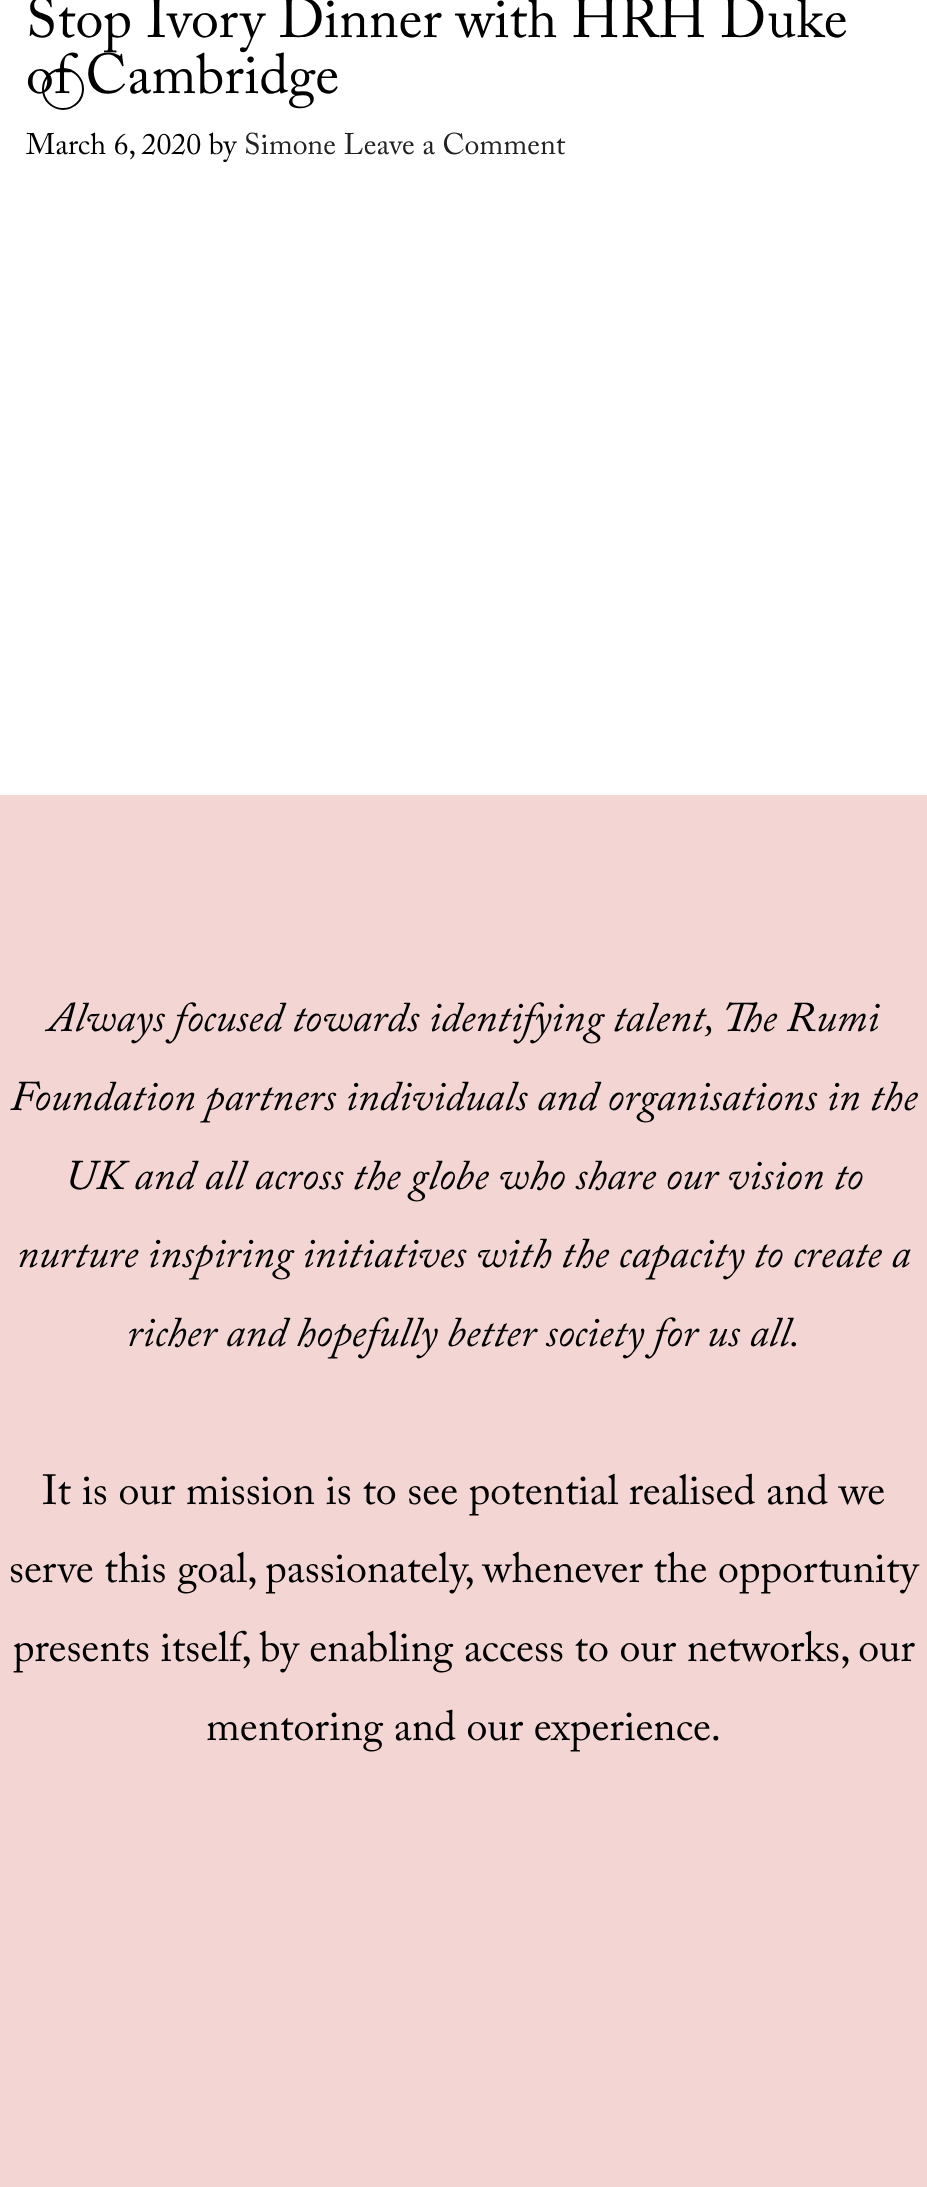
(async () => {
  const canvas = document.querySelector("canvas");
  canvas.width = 927;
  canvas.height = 2187;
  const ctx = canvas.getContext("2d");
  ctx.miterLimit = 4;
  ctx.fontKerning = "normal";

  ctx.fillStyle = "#ffffff";
  ctx.fillRect(0, 0, 927, 2187);
  ctx.beginPath();
  ctx.arc(63, 89, 20, 0, Math.PI * 2);
  ctx.strokeStyle = "#000000";
  ctx.lineWidth = 2;
  ctx.stroke();
  ctx.fillStyle = "#f3d6d3";
  ctx.fillRect(0, 795, 927, 1392);
  ctx.font = "56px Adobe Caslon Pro";
  ctx.fillStyle = "#000000";
  ctx.fillText("Stop Ivory Dinner with HRH Duke", 26, 37);
  ctx.fillText("of Cambridge", 26, 93);
  ctx.font = "29.75px Adobe Caslon Pro";
  ctx.fillText("March 6, 2020 by", 26, 154);
  ctx.fillStyle = "#222222";
  ctx.fillText("Simone Leave a Comment", 244, 154);
  ctx.font = "italic 42px Adobe Caslon Pro";
  ctx.fillStyle = "#000000";
  for (const [text, x, y] of [
    ["Always focused towards identifying talent, The Rumi", 48, 1031],
    ["Foundation partners individuals and organisations in the", 10, 1110],
    ["UK and all across the globe who share our vision to", 65, 1189],
    ["nurture inspiring initiatives with the capacity to create a", 17, 1267],
    ["richer and hopefully better society for us all.", 127, 1346],
  ]) {
    ctx.fillText(text, x, y);
  }
  ctx.font = "42px Adobe Caslon Pro";
  for (const [text, x, y] of [
    ["It is our mission is to see potential realised and we", 42, 1504],
    ["serve this goal, passionately, whenever the opportunity", 9, 1582],
    ["presents itself, by enabling access to our networks, our", 13, 1661],
    ["mentoring and our experience.", 206, 1740],
  ]) {
    ctx.fillText(text, x, y);
  }
})();
